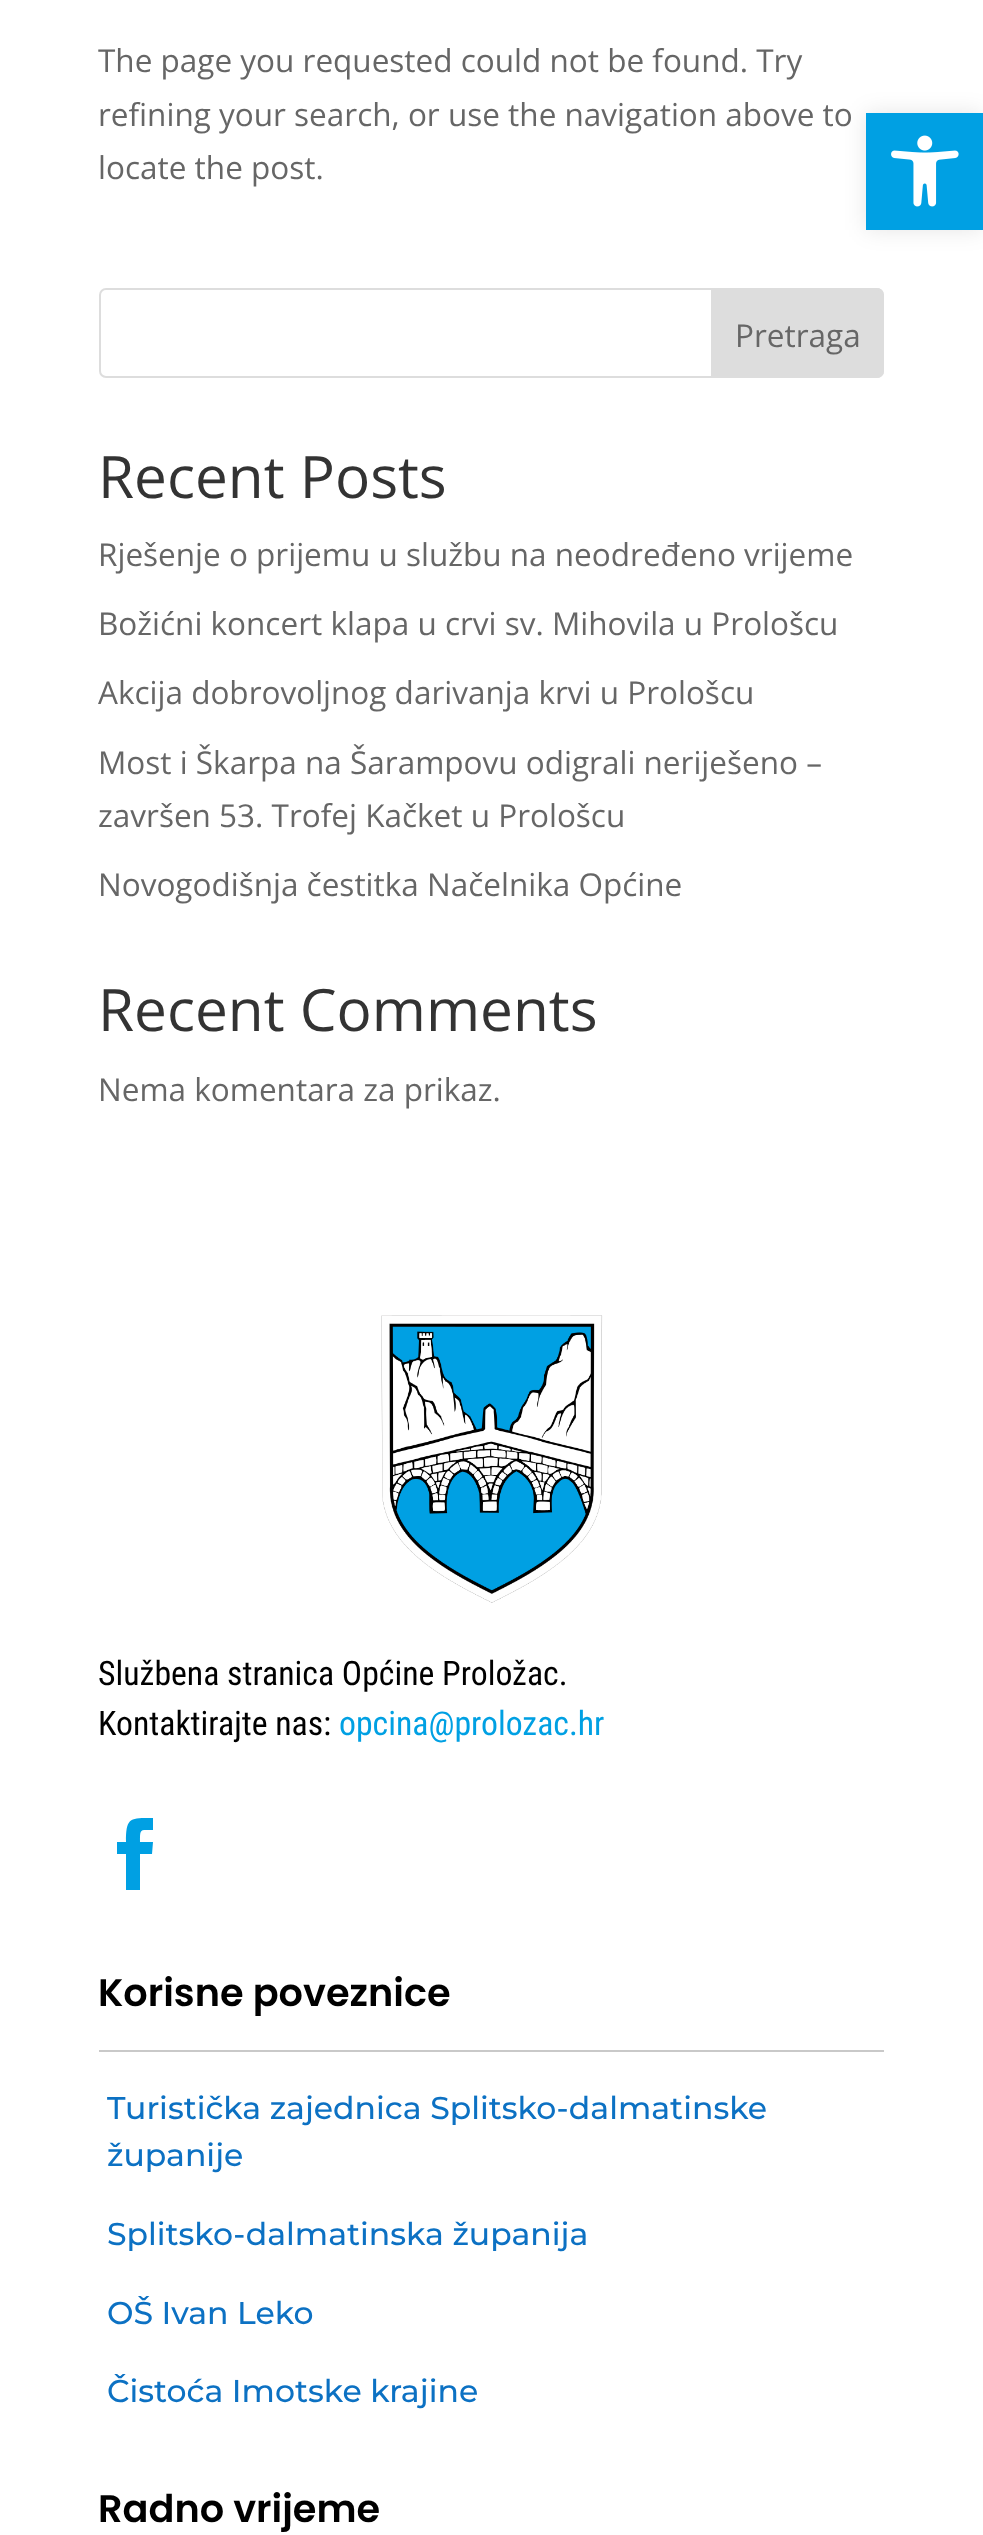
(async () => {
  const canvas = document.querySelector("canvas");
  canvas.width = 983;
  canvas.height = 2535;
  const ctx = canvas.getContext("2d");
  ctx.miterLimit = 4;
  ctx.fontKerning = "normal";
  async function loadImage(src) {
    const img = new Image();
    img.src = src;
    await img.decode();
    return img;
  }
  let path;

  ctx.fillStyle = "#ffffff";
  ctx.fillRect(0, 0, 983, 2535);
  ctx.beginPath();
  ctx.roundRect(100, 289, 783, 88, 6);
  ctx.strokeStyle = "#dddddd";
  ctx.lineWidth = 2;
  ctx.stroke();
  ctx.fillStyle = "#dddddd";
  ctx.beginPath();
  ctx.roundRect(712, 289, 171, 88, [0, 6, 6, 0]);
  ctx.fill();
  ctx.stroke();
  ctx.drawImage(await loadImage("img/1.png"), 381, 1315, 222, 288);
  ctx.fillStyle = "#00a0e3";
  path = new Path2D("M126 1890H140V1854H152L153 1842H140C140 1828 140 1830 153 1830V1818C130 1818 126 1817 126 1842H117V1854H126Z");
  ctx.fill(path);
  ctx.fillStyle = "#c9c9c9";
  ctx.fillRect(99, 2050, 785, 2);
  ctx.fillStyle = "rgba(0, 0, 0, 0.1)";
  ctx.filter = "blur(11px)";
  ctx.beginPath();
  ctx.rect(866, 113, 117, 117);
  ctx.fill();
  ctx.filter = "none";
  ctx.fillStyle = "#00a0e3";
  ctx.fillRect(866, 113, 117, 117);
  ctx.drawImage(await loadImage("img/2.png"), 891, 135, 68, 72);
  ctx.font = "31.5px Open Sans";
  ctx.fillStyle = "#666666";
  for (const [text, x, y] of [
    ["The page you requested could not be found. Try", 98, 72],
    ["refining your search, or use the navigation above to", 98, 126],
    ["locate the post.", 98, 179],
    ["Pretraga", 735, 347],
  ]) {
    ctx.fillText(text, x, y);
  }
  ctx.font = "58.5px Open Sans";
  ctx.fillStyle = "#333333";
  ctx.fillText("Recent Posts", 98, 498);
  ctx.font = "31.5px Open Sans";
  ctx.fillStyle = "#666666";
  for (const [text, x, y] of [
    ["Rješenje o prijemu u službu na neodređeno vrijeme", 98, 566],
    ["Božićni koncert klapa u crvi sv. Mihovila u Prološcu", 98, 635],
    ["Akcija dobrovoljnog darivanja krvi u Prološcu", 98, 704],
    ["Most i Škarpa na Šarampovu odigrali neriješeno –", 98, 774],
    ["završen 53. Trofej Kačket u Prološcu", 98, 827],
    ["Novogodišnja čestitka Načelnika Općine", 98, 896],
  ]) {
    ctx.fillText(text, x, y);
  }
  ctx.font = "58.5px Open Sans";
  ctx.fillStyle = "#333333";
  ctx.fillText("Recent Comments", 98, 1031);
  ctx.font = "31.5px Open Sans";
  ctx.fillStyle = "#666666";
  ctx.fillText("Nema komentara za prikaz.", 98, 1101);
  ctx.font = "33.75px Roboto Condensed";
  ctx.fillStyle = "#000000";
  ctx.fillText("Službena stranica Općine Proložac.", 98, 1685);
  ctx.fillText("Kontaktirajte nas:", 98, 1735);
  ctx.fillStyle = "#00a0e3";
  ctx.fillText("opcina@prolozac.hr", 339, 1735);
  ctx.font = "600 38.25px Poppins";
  ctx.fillStyle = "#000000";
  ctx.fillText("Korisne poveznice", 98, 2006);
  ctx.font = "100 31.5px Montserrat";
  ctx.fillStyle = "#0c71c3";
  for (const [text, x, y] of [
    ["Turistička zajednica Splitsko-dalmatinske", 107, 2119],
    ["županije", 107, 2166],
    ["Splitsko-dalmatinska županija", 107, 2245],
    ["OŠ Ivan Leko", 107, 2324],
    ["Čistoća Imotske krajine", 107, 2402],
  ]) {
    ctx.fillText(text, x, y);
  }
  ctx.font = "600 38.25px Poppins";
  ctx.fillStyle = "#000000";
  ctx.fillText("Radno vrijeme", 98, 2522);
})();
